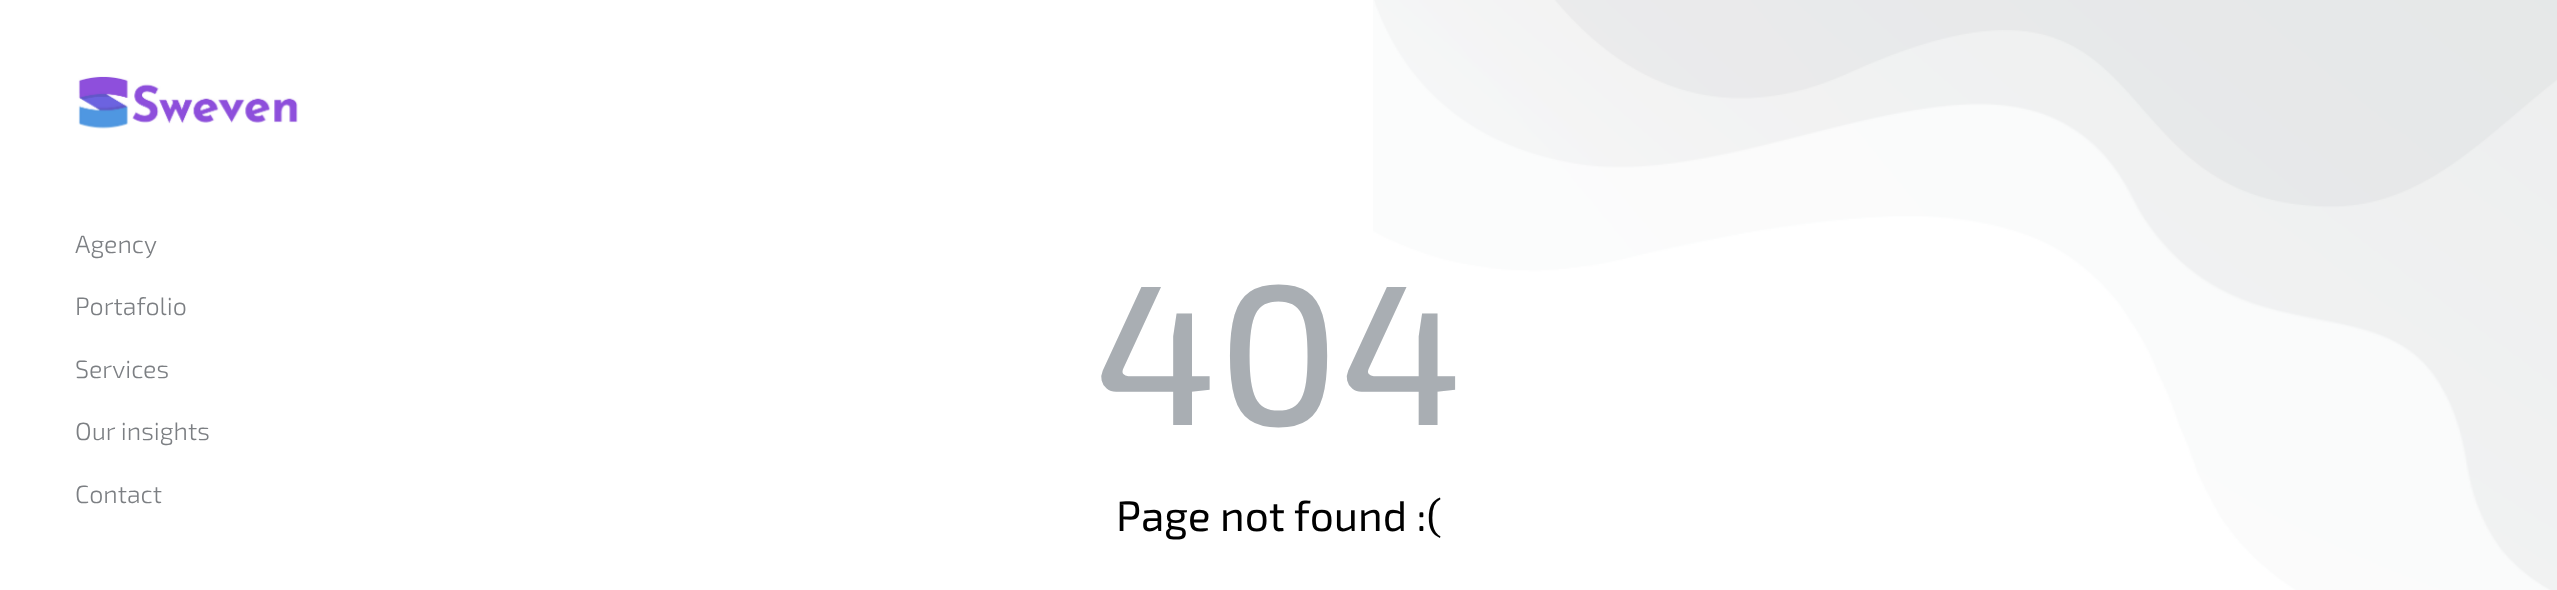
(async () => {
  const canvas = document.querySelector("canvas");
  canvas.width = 2557;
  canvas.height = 590;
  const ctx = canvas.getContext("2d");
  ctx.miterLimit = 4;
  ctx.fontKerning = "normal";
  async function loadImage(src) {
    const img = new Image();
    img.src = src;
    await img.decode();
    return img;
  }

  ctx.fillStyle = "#ffffff";
  ctx.fillRect(0, 0, 2557, 590);
  ctx.drawImage(await loadImage("img/1.png"), 1373, 0, 1184, 590);
  ctx.drawImage(await loadImage("img/2.png"), 78, 76, 220, 53);
  ctx.font = "300 25px 'Exo 2'";
  ctx.fillStyle = "#7c7f83";
  for (const [text, x, y] of [
    ["Agency", 75, 253],
    ["Portafolio", 75, 315],
    ["Services", 75, 378],
    ["Our insights", 75, 440],
    ["Contact", 75, 503],
  ]) {
    ctx.fillText(text, x, y);
  }
  ctx.font = "500 200px 'Exo 2'";
  ctx.fillStyle = "#a9aeb3";
  ctx.fillText("404", 1094, 425);
  ctx.font = "42.5px 'Exo 2'";
  ctx.fillStyle = "#000000";
  ctx.fillText("Page not found :(", 1116, 531);
})();
